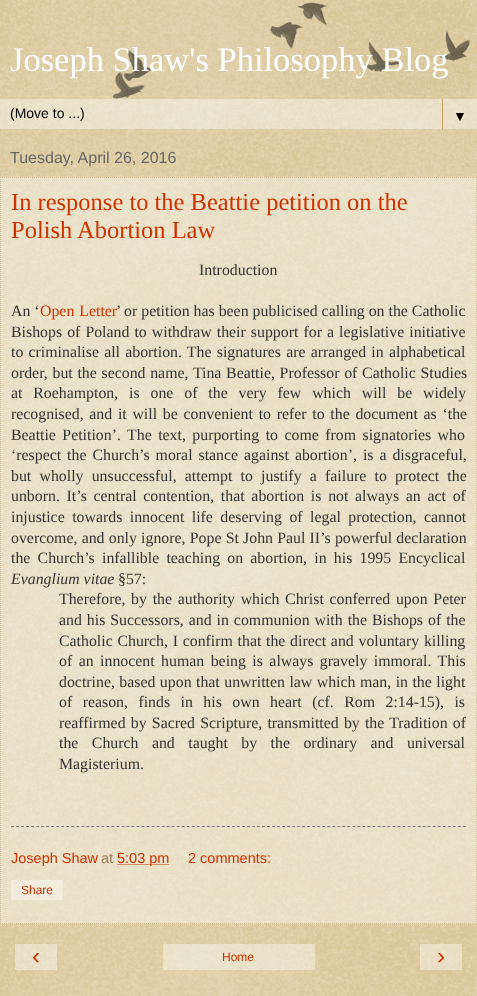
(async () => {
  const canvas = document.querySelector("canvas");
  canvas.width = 477;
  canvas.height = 996;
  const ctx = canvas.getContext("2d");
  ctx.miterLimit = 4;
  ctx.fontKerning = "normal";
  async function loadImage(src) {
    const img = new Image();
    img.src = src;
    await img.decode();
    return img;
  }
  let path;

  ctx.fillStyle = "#c0a154";
  ctx.fillRect(0, 0, 477, 996);
  ctx.drawImage(await loadImage("img/1.png"), 0, 0, 477, 996);
  ctx.drawImage(await loadImage("img/2.png"), 112, 2, 359, 97);
  for (const [x, y, w, h, color] of [
    [0, 99, 477, 30, "rgba(255, 255, 255, 0.4)"],
    [442, 99, 1, 30, "#c0a154"],
    [0, 177, 477, 747, "rgba(255, 255, 255, 0.4)"],
  ]) {
    ctx.fillStyle = color;
    ctx.fillRect(x, y, w, h);
  }
  path = new Path2D("M0 177.5H477");
  ctx.strokeStyle = "#ccbb99";
  ctx.setLineDash([1, 1]);
  ctx.stroke(path);
  path = new Path2D("M476.5 177V924");
  ctx.stroke(path);
  path = new Path2D("M0 923.5H477");
  ctx.stroke(path);
  path = new Path2D("M.5 177V924");
  ctx.stroke(path);
  path = new Path2D("M11 826.5H466");
  ctx.strokeStyle = "#777777";
  ctx.setLineDash([3, 2.02]);
  ctx.stroke(path);
  path = new Path2D("M117.5 864.5H169.5");
  ctx.strokeStyle = "#cc3300";
  ctx.setLineDash([1, 1]);
  ctx.stroke(path);
  for (const [x, y, w, h, color] of [
    [11, 880, 52, 20, "rgba(255, 255, 255, 0.4)"],
    [15, 944, 42, 26, "rgba(255, 255, 255, 0.4)"],
    [163, 944, 152, 26, "rgba(255, 255, 255, 0.4)"],
    [420, 944, 42, 26, "rgba(255, 255, 255, 0.4)"],
  ]) {
    ctx.fillStyle = color;
    ctx.fillRect(x, y, w, h);
  }
  ctx.font = "34.5px Liberation Serif";
  ctx.fillStyle = "#ffffff";
  ctx.fillText("Joseph Shaw's Philosophy Blog", 10, 71);
  ctx.font = "14px Liberation Sans";
  ctx.fillStyle = "#000000";
  ctx.fillText("(Move to ...)", 10, 118);
  ctx.fillText("▼", 453, 121);
  ctx.font = "16px Liberation Sans";
  ctx.fillStyle = "#666666";
  ctx.fillText("Tuesday, April 26, 2016", 10, 163);
  ctx.font = "24.5px Liberation Serif";
  ctx.fillStyle = "#cc3300";
  ctx.fillText("In response to the Beattie petition on the", 11, 210);
  ctx.fillText("Polish Abortion Law", 11, 238);
  ctx.font = "15.85px Liberation Serif";
  ctx.fillStyle = "#333333";
  ctx.fillText("Introduction", 199, 275);
  ctx.fillText("An ‘", 11, 316);
  ctx.wordSpacing = "1px";
  ctx.fillStyle = "#cc3300";
  ctx.fillText("Open Letter", 40, 316);
  ctx.wordSpacing = "0px";
  ctx.fillStyle = "#333333";
  ctx.fillText("’ or petition has been publicised calling on the Catholic", 116, 316);
  ctx.wordSpacing = "1.1px";
  ctx.fillText("Bishops of Poland to withdraw their support for a legislative initiative", 11, 337);
  ctx.wordSpacing = "1.25px";
  ctx.fillText("to criminalise all abortion. The signatures are arranged in alphabetical", 11, 357);
  ctx.wordSpacing = "0.75px";
  ctx.fillText("order, but the second name, Tina Beattie, Professor of Catholic Studies", 11, 378);
  ctx.wordSpacing = "6.9px";
  ctx.fillText("at Roehampton, is one of the very few which will be widely", 11, 398);
  ctx.wordSpacing = "1.75px";
  ctx.fillText("recognised, and it will be convenient to refer to the document as ‘the", 11, 419);
  ctx.wordSpacing = "2.5px";
  ctx.fillText("Beattie Petition’. The text, purporting to come from signatories who", 11, 440);
  ctx.wordSpacing = "2px";
  ctx.fillText("‘respect the Church’s moral stance against abortion’, is a disgraceful,", 11, 460);
  ctx.wordSpacing = "4.25px";
  ctx.fillText("but wholly unsuccessful, attempt to justify a failure to protect the", 11, 481);
  ctx.wordSpacing = "2.75px";
  ctx.fillText("unborn. It’s central contention, that abortion is not always an act of", 11, 501);
  ctx.wordSpacing = "3.5px";
  ctx.fillText("injustice towards innocent life deserving of legal protection, cannot", 11, 522);
  ctx.wordSpacing = "0.25px";
  ctx.fillText("overcome, and only ignore, Pope St John Paul II’s powerful declaration", 11, 543);
  ctx.wordSpacing = "3.25px";
  ctx.fillText("the Church’s infallible teaching on abortion, in his 1995 Encyclical", 11, 563);
  ctx.wordSpacing = "0px";
  ctx.font = "italic 15.85px Liberation Serif";
  ctx.fillText("Evanglium vitae", 11, 584);
  ctx.font = "15.85px Liberation Serif";
  ctx.fillText("§57:", 118, 584);
  ctx.wordSpacing = "1.75px";
  ctx.fillText("Therefore, by the authority which Christ conferred upon Peter", 59, 604);
  ctx.wordSpacing = "1px";
  ctx.fillText("and his Successors, and in communion with the Bishops of the", 59, 625);
  ctx.wordSpacing = "0.75px";
  ctx.fillText("Catholic Church, I confirm that the direct and voluntary killing", 59, 646);
  ctx.wordSpacing = "2.5px";
  ctx.fillText("of an innocent human being is always gravely immoral. This", 59, 666);
  ctx.wordSpacing = "0.5px";
  ctx.fillText("doctrine, based upon that unwritten law which man, in the light", 59, 687);
  ctx.wordSpacing = "6.5px";
  ctx.fillText("of reason, finds in his own heart (cf. Rom 2:14-15), is", 59, 707);
  ctx.wordSpacing = "1.25px";
  ctx.fillText("reaffirmed by Sacred Scripture, transmitted by the Tradition of", 59, 728);
  ctx.wordSpacing = "9.5px";
  ctx.fillText("the Church and taught by the ordinary and universal", 59, 748);
  ctx.wordSpacing = "0px";
  ctx.fillText("Magisterium.", 59, 769);
  ctx.font = "14.5px Liberation Sans";
  ctx.fillStyle = "#cc3300";
  ctx.fillText("Joseph Shaw", 11, 863);
  ctx.fillStyle = "#997755";
  ctx.fillText("at", 101, 863);
  ctx.fillStyle = "#cc3300";
  ctx.fillText("5:03 pm", 117, 863);
  ctx.fillText("2 comments:", 188, 863);
  ctx.font = "12px Liberation Sans";
  ctx.fillText("Share", 21, 894);
  ctx.font = "24px Liberation Sans";
  ctx.fillText("‹", 32, 964);
  ctx.font = "12px Liberation Sans";
  ctx.fillText("Home", 222, 961);
  ctx.font = "24px Liberation Sans";
  ctx.fillText("›", 437, 964);
})();
